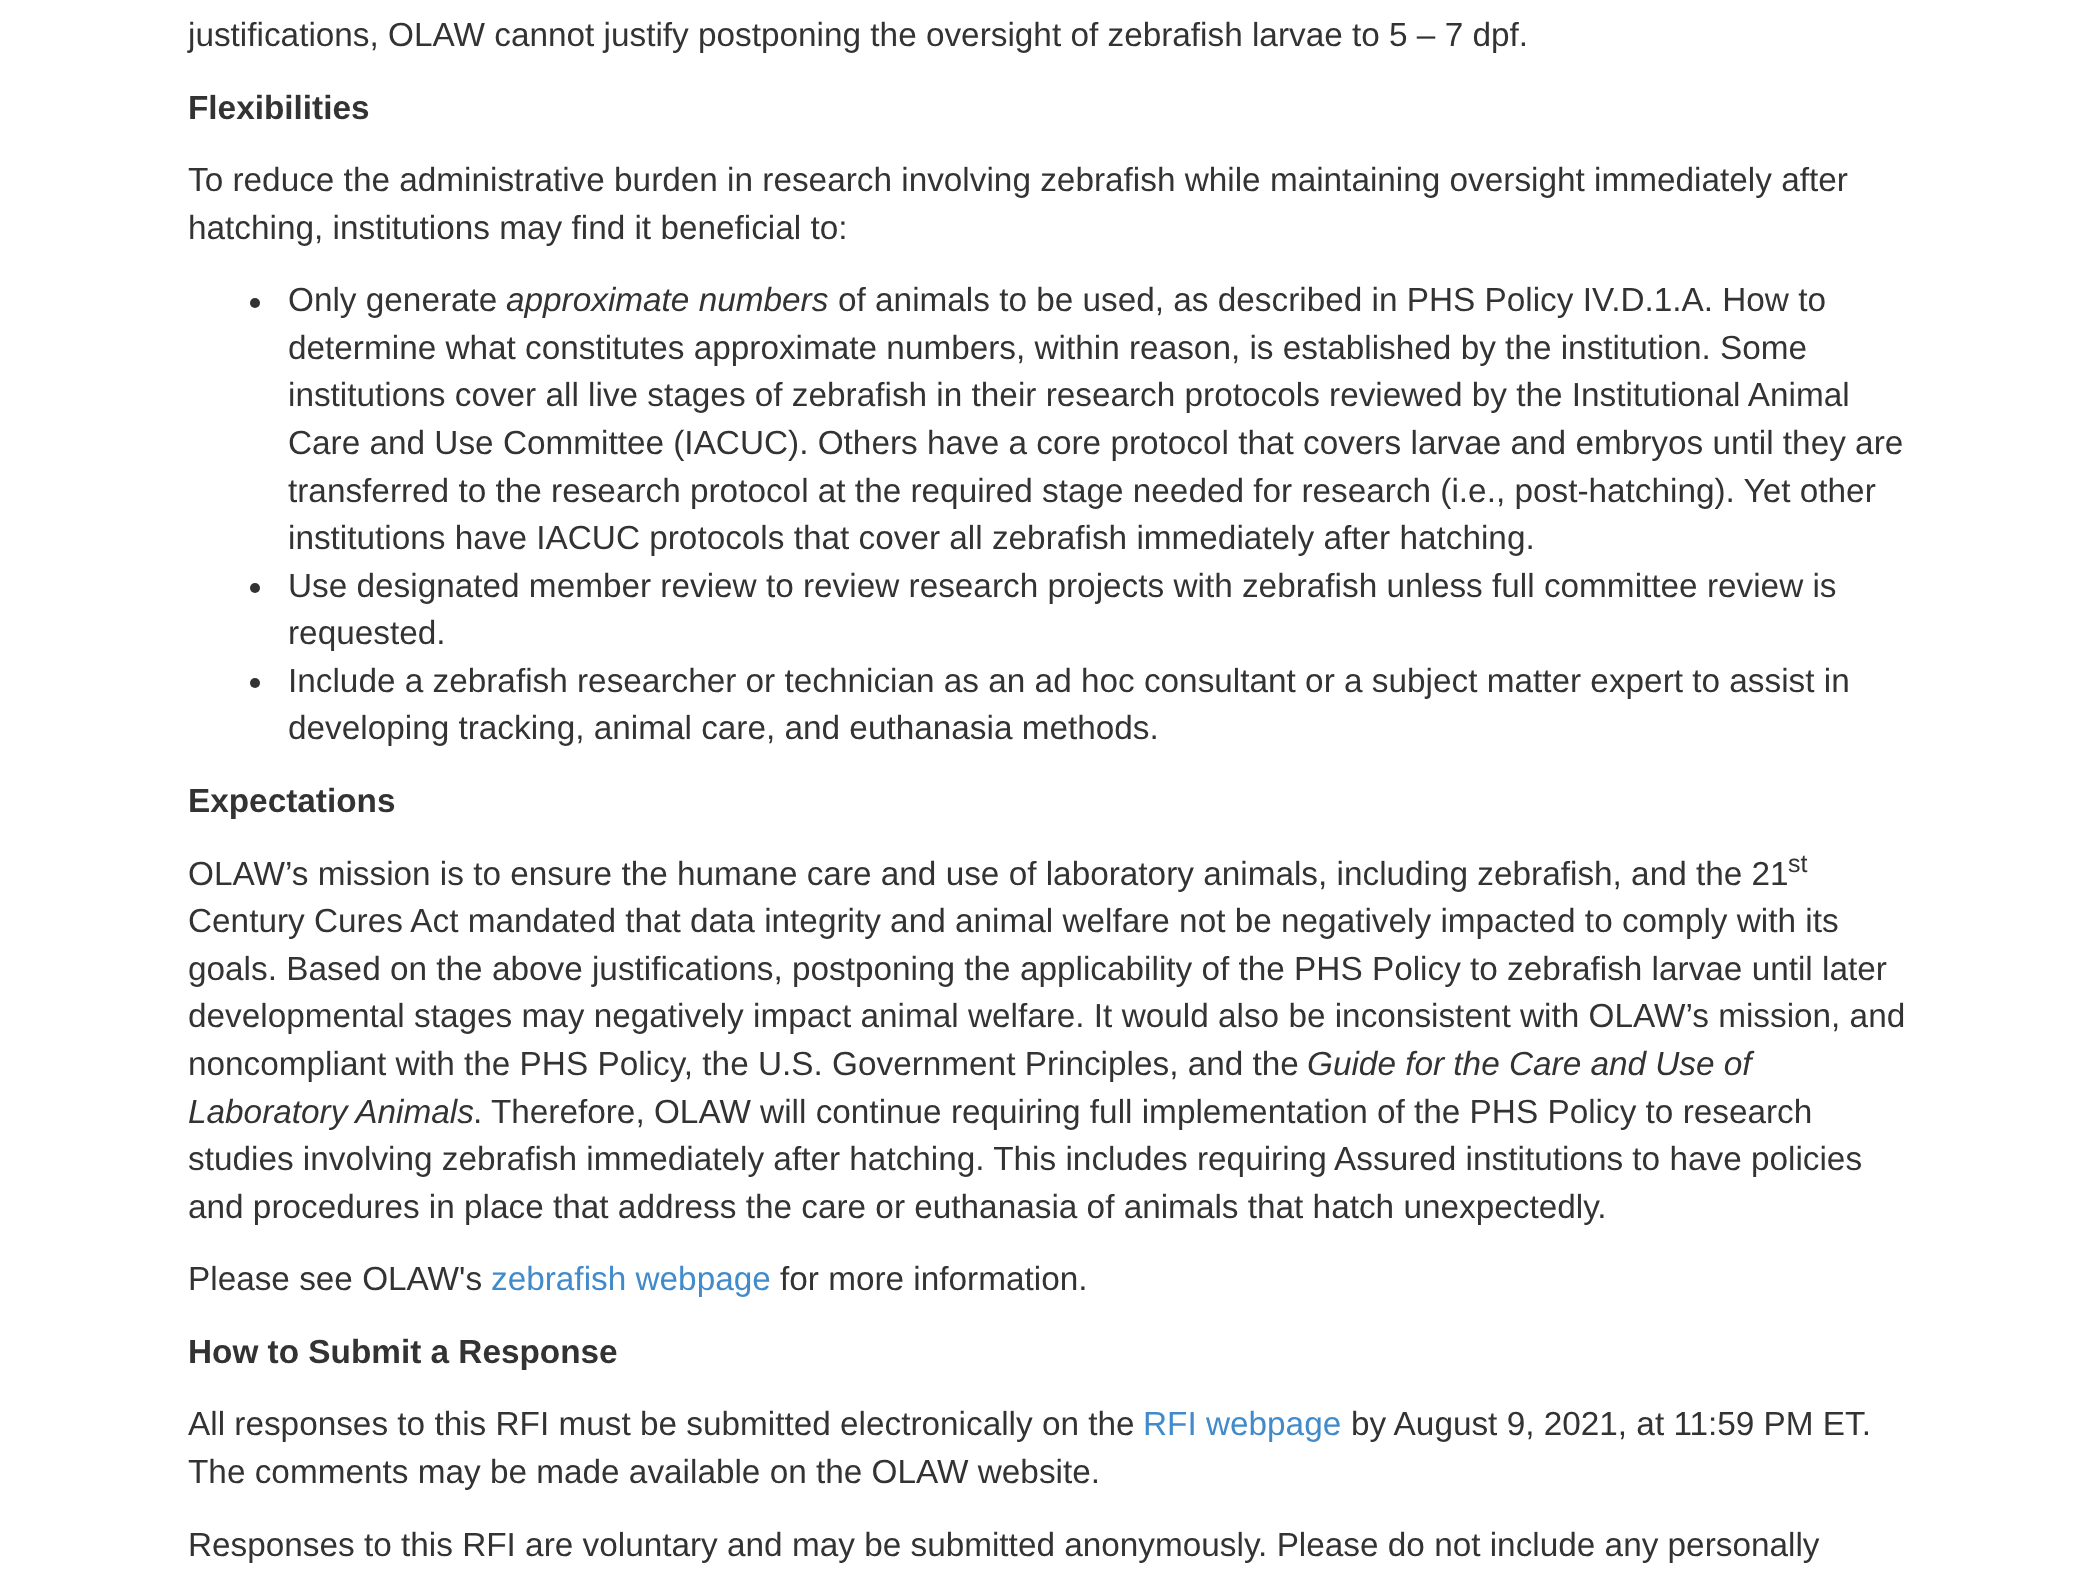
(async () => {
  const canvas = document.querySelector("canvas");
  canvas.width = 2099;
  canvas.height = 1586;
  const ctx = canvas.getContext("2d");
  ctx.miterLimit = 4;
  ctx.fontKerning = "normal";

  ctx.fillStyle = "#ffffff";
  ctx.fillRect(0, 0, 2099, 1586);
  ctx.fillStyle = "#333333";
  ctx.beginPath();
  ctx.arc(255, 303, 5, 0, Math.PI * 2);
  ctx.fill();
  ctx.beginPath();
  ctx.arc(255, 588, 5, 0, Math.PI * 2);
  ctx.fill();
  ctx.beginPath();
  ctx.arc(255, 683, 5, 0, Math.PI * 2);
  ctx.fill();
  ctx.font = "33.33px Liberation Sans";
  ctx.fillText("justifications, OLAW cannot justify postponing the oversight of zebrafish larvae to 5 – 7 dpf.", 188, 46);
  ctx.font = "bold 33.33px Liberation Sans";
  ctx.fillText("Flexibilities", 188, 119);
  ctx.font = "33.33px Liberation Sans";
  for (const [text, x, y] of [
    ["To reduce the administrative burden in research involving zebrafish while maintaining oversight immediately after", 188, 191],
    ["hatching, institutions may find it beneficial to:", 188, 239],
    ["Only generate", 288, 311],
  ]) {
    ctx.fillText(text, x, y);
  }
  ctx.font = "italic 33.33px Liberation Sans";
  ctx.fillText("approximate numbers", 506, 311);
  ctx.font = "33.33px Liberation Sans";
  for (const [text, x, y] of [
    ["of animals to be used, as described in PHS Policy IV.D.1.A. How to", 838, 311],
    ["determine what constitutes approximate numbers, within reason, is established by the institution. Some", 288, 359],
    ["institutions cover all live stages of zebrafish in their research protocols reviewed by the Institutional Animal", 288, 406],
    ["Care and Use Committee (IACUC). Others have a core protocol that covers larvae and embryos until they are", 288, 454],
    ["transferred to the research protocol at the required stage needed for research (i.e., post-hatching). Yet other", 288, 502],
    ["institutions have IACUC protocols that cover all zebrafish immediately after hatching.", 288, 549],
    ["Use designated member review to review research projects with zebrafish unless full committee review is", 288, 597],
    ["requested.", 288, 644],
    ["Include a zebrafish researcher or technician as an ad hoc consultant or a subject matter expert to assist in", 288, 692],
    ["developing tracking, animal care, and euthanasia methods.", 288, 739],
  ]) {
    ctx.fillText(text, x, y);
  }
  ctx.font = "bold 33.33px Liberation Sans";
  ctx.fillText("Expectations", 188, 812);
  ctx.font = "33.33px Liberation Sans";
  ctx.fillText("OLAW’s mission is to ensure the humane care and use of laboratory animals, including zebrafish, and the 21", 188, 885);
  ctx.font = "25px Liberation Sans";
  ctx.fillText("st", 1788, 872);
  ctx.font = "33.33px Liberation Sans";
  for (const [text, x, y] of [
    ["Century Cures Act mandated that data integrity and animal welfare not be negatively impacted to comply with its", 188, 932],
    ["goals. Based on the above justifications, postponing the applicability of the PHS Policy to zebrafish larvae until later", 188, 980],
    ["developmental stages may negatively impact animal welfare. It would also be inconsistent with OLAW’s mission, and", 188, 1027],
    ["noncompliant with the PHS Policy, the U.S. Government Principles, and the", 188, 1075],
  ]) {
    ctx.fillText(text, x, y);
  }
  ctx.font = "italic 33.33px Liberation Sans";
  ctx.fillText("Guide for the Care and Use of", 1307, 1075);
  ctx.fillText("Laboratory Animals", 188, 1123);
  ctx.font = "33.33px Liberation Sans";
  for (const [text, x, y] of [
    [". Therefore, OLAW will continue requiring full implementation of the PHS Policy to research", 473, 1123],
    ["studies involving zebrafish immediately after hatching. This includes requiring Assured institutions to have policies", 188, 1170],
    ["and procedures in place that address the care or euthanasia of animals that hatch unexpectedly.", 188, 1218],
    ["Please see OLAW's", 188, 1290],
  ]) {
    ctx.fillText(text, x, y);
  }
  ctx.fillStyle = "#428bca";
  ctx.fillText("zebrafish webpage", 491, 1290);
  ctx.fillStyle = "#333333";
  ctx.fillText("for more information.", 780, 1290);
  ctx.font = "bold 33.33px Liberation Sans";
  ctx.fillText("How to Submit a Response", 188, 1363);
  ctx.font = "33.33px Liberation Sans";
  ctx.fillText("All responses to this RFI must be submitted electronically on the", 188, 1435);
  ctx.fillStyle = "#428bca";
  ctx.fillText("RFI webpage", 1143, 1435);
  ctx.fillStyle = "#333333";
  for (const [text, x, y] of [
    ["by August 9, 2021, at 11:59 PM ET.", 1351, 1435],
    ["The comments may be made available on the OLAW website.", 188, 1483],
    ["Responses to this RFI are voluntary and may be submitted anonymously. Please do not include any personally", 188, 1556],
  ]) {
    ctx.fillText(text, x, y);
  }
})();
